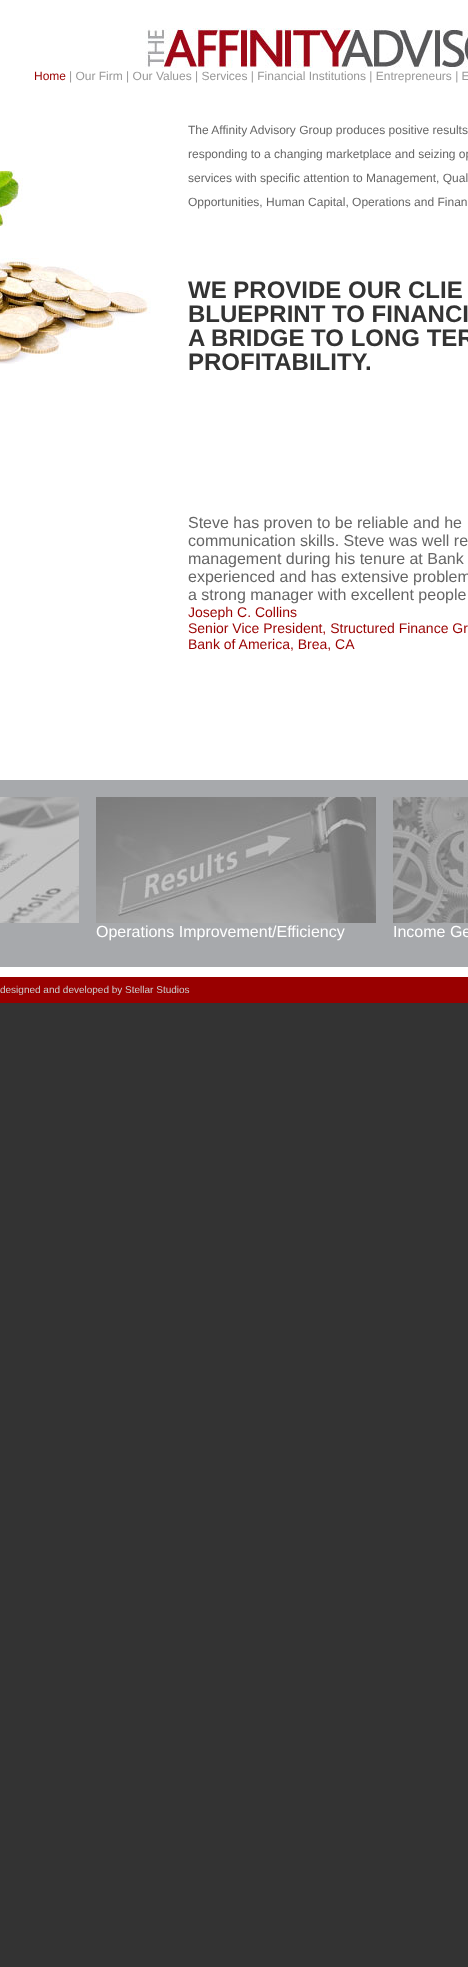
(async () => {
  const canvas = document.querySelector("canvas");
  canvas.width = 468;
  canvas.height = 1967;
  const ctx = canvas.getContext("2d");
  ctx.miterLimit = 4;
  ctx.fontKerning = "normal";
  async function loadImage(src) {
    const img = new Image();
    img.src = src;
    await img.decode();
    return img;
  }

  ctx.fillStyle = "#333333";
  ctx.fillRect(0, 0, 468, 1967);
  ctx.fillStyle = "#ffffff";
  ctx.fillRect(0, 0, 468, 977);
  ctx.drawImage(await loadImage("img/1.png"), 145, 28, 323, 40);
  ctx.drawImage(await loadImage("img/2.png"), 0, 170, 151, 194);
  ctx.fillStyle = "#a7a9ac";
  ctx.fillRect(0, 780, 468, 187);
  ctx.drawImage(await loadImage("img/3.png"), 0, 797, 79, 126);
  ctx.drawImage(await loadImage("img/4.png"), 96, 797, 280, 126);
  ctx.drawImage(await loadImage("img/5.png"), 393, 797, 75, 126);
  ctx.fillStyle = "#990000";
  ctx.fillRect(0, 977, 468, 26);
  ctx.font = "12px Liberation Sans";
  ctx.fillText("Home", 34, 80);
  ctx.fillStyle = "#999999";
  ctx.fillText("| Our Firm | Our Values | Services | Financial Institutions | Entrepreneurs | E", 69, 80);
  ctx.fillStyle = "#666666";
  for (const [text, x, y] of [
    ["The Affinity Advisory Group produces positive results", 188, 134],
    ["responding to a changing marketplace and seizing op", 188, 158],
    ["services with specific attention to Management, Qual", 188, 182],
    ["Opportunities, Human Capital, Operations and Finan", 188, 206],
  ]) {
    ctx.fillText(text, x, y);
  }
  ctx.font = "bold 24px Liberation Sans";
  ctx.fillStyle = "#333333";
  for (const [text, x, y] of [
    ["WE PROVIDE OUR CLIE", 188, 298],
    ["BLUEPRINT TO FINANCI", 188, 322],
    ["A BRIDGE TO LONG TER", 188, 346],
    ["PROFITABILITY.", 188, 370],
  ]) {
    ctx.fillText(text, x, y);
  }
  ctx.font = "16px Liberation Sans";
  ctx.fillStyle = "#666666";
  for (const [text, x, y] of [
    ["Steve has proven to be reliable and he", 188, 528],
    ["communication skills. Steve was well re", 188, 546],
    ["management during his tenure at Bank", 188, 564],
    ["experienced and has extensive problem", 188, 582],
    ["a strong manager with excellent people", 188, 600],
  ]) {
    ctx.fillText(text, x, y);
  }
  ctx.font = "14px Liberation Sans";
  ctx.fillStyle = "#990000";
  for (const [text, x, y] of [
    ["Joseph C. Collins", 188, 617],
    ["Senior Vice President, Structured Finance Gr", 188, 633],
    ["Bank of America, Brea, CA", 188, 649],
  ]) {
    ctx.fillText(text, x, y);
  }
  ctx.font = "16px Liberation Sans";
  ctx.fillStyle = "#ffffff";
  ctx.fillText("Operations Improvement/Efficiency", 96, 937);
  ctx.fillText("Income Ge", 393, 937);
  ctx.font = "10px Liberation Sans";
  ctx.fillStyle = "#cccccc";
  ctx.fillText("designed and developed by Stellar Studios", 0, 993);
})();
